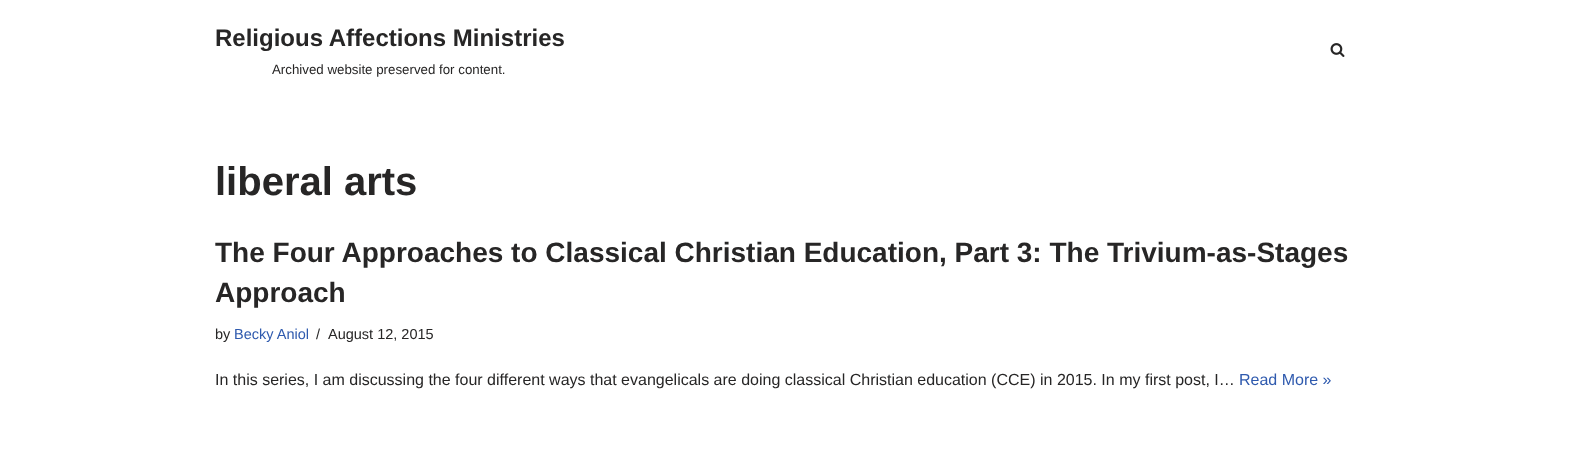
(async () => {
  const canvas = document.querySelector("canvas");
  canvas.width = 1569;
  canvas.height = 458;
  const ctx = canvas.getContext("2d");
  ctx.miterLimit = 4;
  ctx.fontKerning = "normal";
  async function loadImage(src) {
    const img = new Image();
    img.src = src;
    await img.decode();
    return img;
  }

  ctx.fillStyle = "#ffffff";
  ctx.fillRect(0, 0, 1569, 458);
  ctx.drawImage(await loadImage("img/1.png"), 1330, 43, 15, 14);
  ctx.font = "bold 24px Liberation Sans";
  ctx.fillStyle = "#272626";
  ctx.fillText("Religious Affections Ministries", 215, 46);
  ctx.font = "13.3px Liberation Sans";
  ctx.fillText("Archived website preserved for content.", 272, 74);
  ctx.font = "bold 40px Liberation Sans";
  ctx.fillText("liberal arts", 215, 195);
  ctx.font = "bold 28px Liberation Sans";
  ctx.fillText("The Four Approaches to Classical Christian Education, Part 3: The Trivium-as-Stages", 215, 262);
  ctx.fillText("Approach", 215, 302);
  ctx.font = "14.5px Liberation Sans";
  ctx.fillText("by", 215, 339);
  ctx.fillStyle = "#2f5aae";
  ctx.fillText("Becky Aniol", 234, 339);
  ctx.fillStyle = "#272626";
  ctx.fillText("/", 316, 339);
  ctx.fillText("August 12, 2015", 328, 339);
  ctx.font = "16px Liberation Sans";
  ctx.fillText("In this series, I am discussing the four different ways that evangelicals are doing classical Christian education (CCE) in 2015. In my first post, I…", 215, 385);
  ctx.fillStyle = "#2f5aae";
  ctx.fillText("Read More »", 1239, 385);
})();
